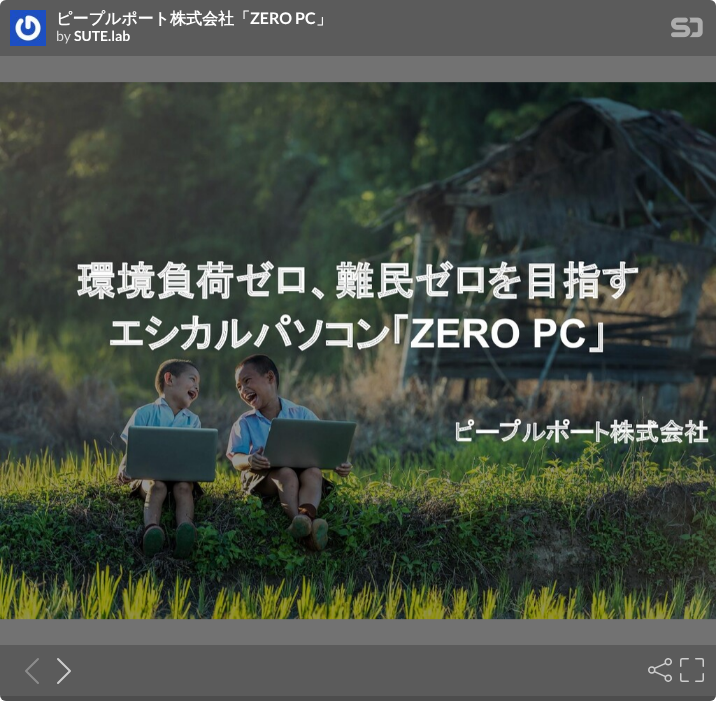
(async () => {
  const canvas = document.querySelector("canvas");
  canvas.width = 716;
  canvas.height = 701;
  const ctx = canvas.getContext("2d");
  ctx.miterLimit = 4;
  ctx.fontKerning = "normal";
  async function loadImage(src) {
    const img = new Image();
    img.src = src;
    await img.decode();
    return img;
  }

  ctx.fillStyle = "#ffffff";
  ctx.fillRect(0, 0, 716, 701);
  ctx.fillStyle = "#727272";
  ctx.beginPath();
  ctx.roundRect(0, 0, 716, 701, 6);
  ctx.fill();
  ctx.drawImage(await loadImage("img/1.png"), 0, 82, 716, 538);
  ctx.fillStyle = "rgba(0, 0, 0, 0.2)";
  ctx.beginPath();
  ctx.roundRect(0, 0, 716, 56, [6, 6, 0, 0]);
  ctx.fill();
  ctx.drawImage(await loadImage("img/2.png"), 10, 10, 36, 36);
  ctx.drawImage(await loadImage("img/3.png"), 671, 17, 32, 21);
  ctx.beginPath();
  ctx.roundRect(0, 645, 716, 56, [0, 0, 6, 6]);
  ctx.fill();
  ctx.drawImage(await loadImage("img/4.png"), 25, 658, 14, 26);
  ctx.drawImage(await loadImage("img/5.png"), 57, 658, 14, 26);
  ctx.drawImage(await loadImage("img/6.png"), 648, 658, 24, 24);
  ctx.drawImage(await loadImage("img/7.png"), 680, 658, 24, 24);
  ctx.save();
  ctx.beginPath();
  ctx.roundRect(0, 0, 716, 701, 6);
  ctx.clip();
  ctx.fillStyle = "rgba(0, 0, 0, 0.15)";
  ctx.fillRect(0, 696, 716, 5);
  ctx.restore();
  ctx.font = "bold 16px WenQuanYi Zen Hei";
  ctx.fillStyle = "#ffffff";
  ctx.fillText("ピープルポート株式会社「", 56, 24);
  ctx.font = "bold 16px Lato";
  ctx.fillText("ZERO PC", 250, 24);
  ctx.font = "bold 16px WenQuanYi Zen Hei";
  ctx.fillText("」", 316, 24);
  ctx.font = "14px Lato";
  ctx.fillStyle = "#dedede";
  ctx.fillText("by", 56, 41);
  ctx.font = "bold 14px Lato";
  ctx.fillStyle = "#ffffff";
  ctx.fillText("SUTE.lab", 74, 41);
})();
